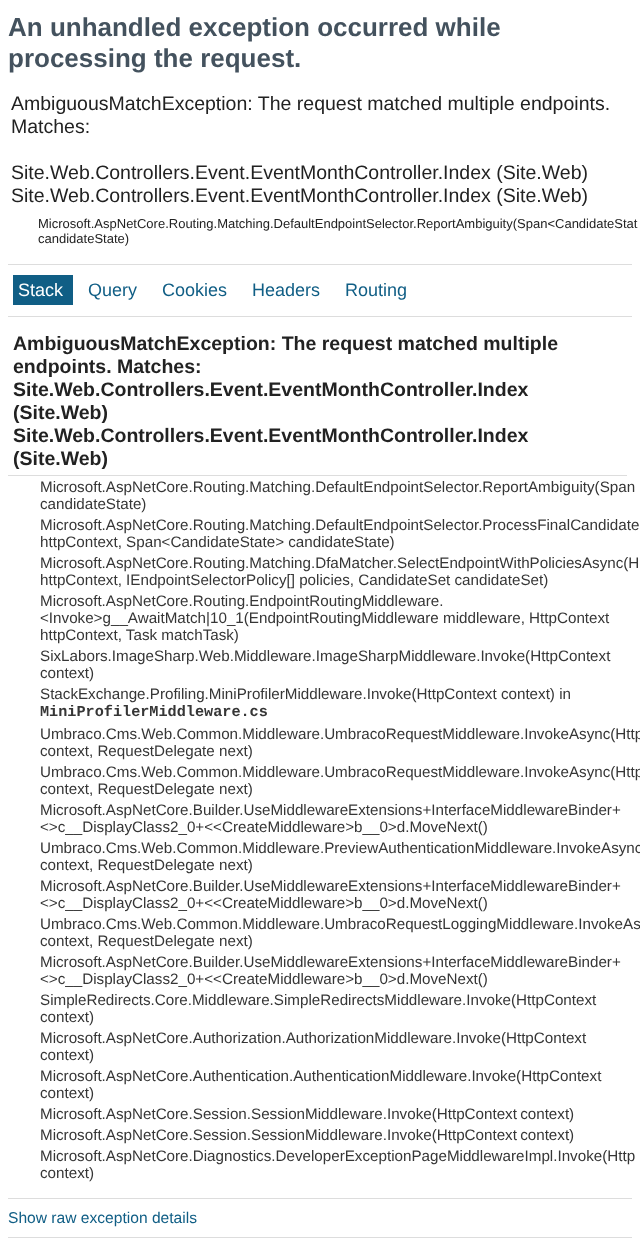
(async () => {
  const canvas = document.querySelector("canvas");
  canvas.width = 640;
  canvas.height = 1246;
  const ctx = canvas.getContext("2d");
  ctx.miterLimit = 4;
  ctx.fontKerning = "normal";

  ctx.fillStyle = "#ffffff";
  ctx.fillRect(0, 0, 640, 1246);
  for (const [x, y, w, h, color] of [
    [8, 264, 624, 1, "#dddddd"],
    [8, 316, 624, 1, "#dddddd"],
    [13, 275, 60, 30, "#105e85"],
    [8, 475, 619, 1, "#dddddd"],
    [8, 1198, 624, 1, "#dddddd"],
    [8, 1237, 624, 1, "#dddddd"],
  ]) {
    ctx.fillStyle = color;
    ctx.fillRect(x, y, w, h);
  }
  ctx.font = "bold 26px Liberation Sans";
  ctx.fillStyle = "#44525e";
  ctx.fillText("An unhandled exception occurred while", 8, 36);
  ctx.fillText("processing the request.", 8, 67);
  ctx.font = "19.5px Liberation Sans";
  ctx.fillStyle = "#222222";
  for (const [text, x, y] of [
    ["AmbiguousMatchException: The request matched multiple endpoints.", 11, 110],
    ["Matches:", 11, 133],
    ["Site.Web.Controllers.Event.EventMonthController.Index (Site.Web)", 11, 179],
    ["Site.Web.Controllers.Event.EventMonthController.Index (Site.Web)", 11, 202],
  ]) {
    ctx.fillText(text, x, y);
  }
  ctx.font = "13px Liberation Sans";
  ctx.fillText("Microsoft.AspNetCore.Routing.Matching.DefaultEndpointSelector.ReportAmbiguity(Span<CandidateStat", 38, 228);
  ctx.fillText("candidateState)", 38, 243);
  ctx.font = "18px Liberation Sans";
  ctx.fillStyle = "#ffffff";
  ctx.fillText("Stack", 18, 296);
  ctx.fillStyle = "#105e85";
  for (const [text, x, y] of [
    ["Query", 88, 296],
    ["Cookies", 162, 296],
    ["Headers", 252, 296],
    ["Routing", 345, 296],
  ]) {
    ctx.fillText(text, x, y);
  }
  ctx.font = "bold 19.5px Liberation Sans";
  ctx.fillStyle = "#222222";
  for (const [text, x, y] of [
    ["AmbiguousMatchException: The request matched multiple", 13, 350],
    ["endpoints. Matches:", 13, 373],
    ["Site.Web.Controllers.Event.EventMonthController.Index", 13, 396],
    ["(Site.Web)", 13, 419],
    ["Site.Web.Controllers.Event.EventMonthController.Index", 13, 442],
    ["(Site.Web)", 13, 465],
  ]) {
    ctx.fillText(text, x, y);
  }
  ctx.font = "15.2px Liberation Sans";
  ctx.fillStyle = "#363636";
  for (const [text, x, y] of [
    ["Microsoft.AspNetCore.Routing.Matching.DefaultEndpointSelector.ReportAmbiguity(Span", 40, 492],
    ["candidateState)", 40, 509],
    ["Microsoft.AspNetCore.Routing.Matching.DefaultEndpointSelector.ProcessFinalCandidate", 40, 530],
    ["httpContext, Span<CandidateState> candidateState)", 40, 547],
    ["Microsoft.AspNetCore.Routing.Matching.DfaMatcher.SelectEndpointWithPoliciesAsync(H", 40, 568],
    ["httpContext, IEndpointSelectorPolicy[] policies, CandidateSet candidateSet)", 40, 585],
    ["Microsoft.AspNetCore.Routing.EndpointRoutingMiddleware.", 40, 606],
    ["<Invoke>g__AwaitMatch|10_1(EndpointRoutingMiddleware middleware, HttpContext", 40, 623],
    ["httpContext, Task matchTask)", 40, 640],
    ["SixLabors.ImageSharp.Web.Middleware.ImageSharpMiddleware.Invoke(HttpContext", 40, 661],
    ["context)", 40, 678],
    ["StackExchange.Profiling.MiniProfilerMiddleware.Invoke(HttpContext context) in", 40, 699],
  ]) {
    ctx.fillText(text, x, y);
  }
  ctx.font = "bold 15.2px Liberation Mono";
  ctx.fillText("MiniProfilerMiddleware.cs", 40, 716);
  ctx.font = "15.2px Liberation Sans";
  for (const [text, x, y] of [
    ["Umbraco.Cms.Web.Common.Middleware.UmbracoRequestMiddleware.InvokeAsync(Http", 40, 739],
    ["context, RequestDelegate next)", 40, 756],
    ["Umbraco.Cms.Web.Common.Middleware.UmbracoRequestMiddleware.InvokeAsync(Http", 40, 777],
    ["context, RequestDelegate next)", 40, 794],
    ["Microsoft.AspNetCore.Builder.UseMiddlewareExtensions+InterfaceMiddlewareBinder+", 40, 815],
    ["<>c__DisplayClass2_0+<<CreateMiddleware>b__0>d.MoveNext()", 40, 832],
    ["Umbraco.Cms.Web.Common.Middleware.PreviewAuthenticationMiddleware.InvokeAsync", 40, 853],
    ["context, RequestDelegate next)", 40, 870],
    ["Microsoft.AspNetCore.Builder.UseMiddlewareExtensions+InterfaceMiddlewareBinder+", 40, 891],
    ["<>c__DisplayClass2_0+<<CreateMiddleware>b__0>d.MoveNext()", 40, 908],
    ["Umbraco.Cms.Web.Common.Middleware.UmbracoRequestLoggingMiddleware.InvokeAs", 40, 929],
    ["context, RequestDelegate next)", 40, 946],
    ["Microsoft.AspNetCore.Builder.UseMiddlewareExtensions+InterfaceMiddlewareBinder+", 40, 967],
    ["<>c__DisplayClass2_0+<<CreateMiddleware>b__0>d.MoveNext()", 40, 984],
    ["SimpleRedirects.Core.Middleware.SimpleRedirectsMiddleware.Invoke(HttpContext", 40, 1005],
    ["context)", 40, 1022],
    ["Microsoft.AspNetCore.Authorization.AuthorizationMiddleware.Invoke(HttpContext", 40, 1043],
    ["context)", 40, 1060],
    ["Microsoft.AspNetCore.Authentication.AuthenticationMiddleware.Invoke(HttpContext", 40, 1081],
    ["context)", 40, 1098],
  ]) {
    ctx.fillText(text, x, y);
  }
  ctx.wordSpacing = "-1px";
  ctx.fillText("Microsoft.AspNetCore.Session.SessionMiddleware.Invoke(HttpContext context)", 40, 1119);
  ctx.fillText("Microsoft.AspNetCore.Session.SessionMiddleware.Invoke(HttpContext context)", 40, 1140);
  ctx.wordSpacing = "0px";
  ctx.fillText("Microsoft.AspNetCore.Diagnostics.DeveloperExceptionPageMiddlewareImpl.Invoke(Http", 40, 1161);
  ctx.fillText("context)", 40, 1178);
  ctx.font = "15.6px Liberation Sans";
  ctx.fillStyle = "#105e85";
  ctx.fillText("Show raw exception details", 8, 1223);
})();
